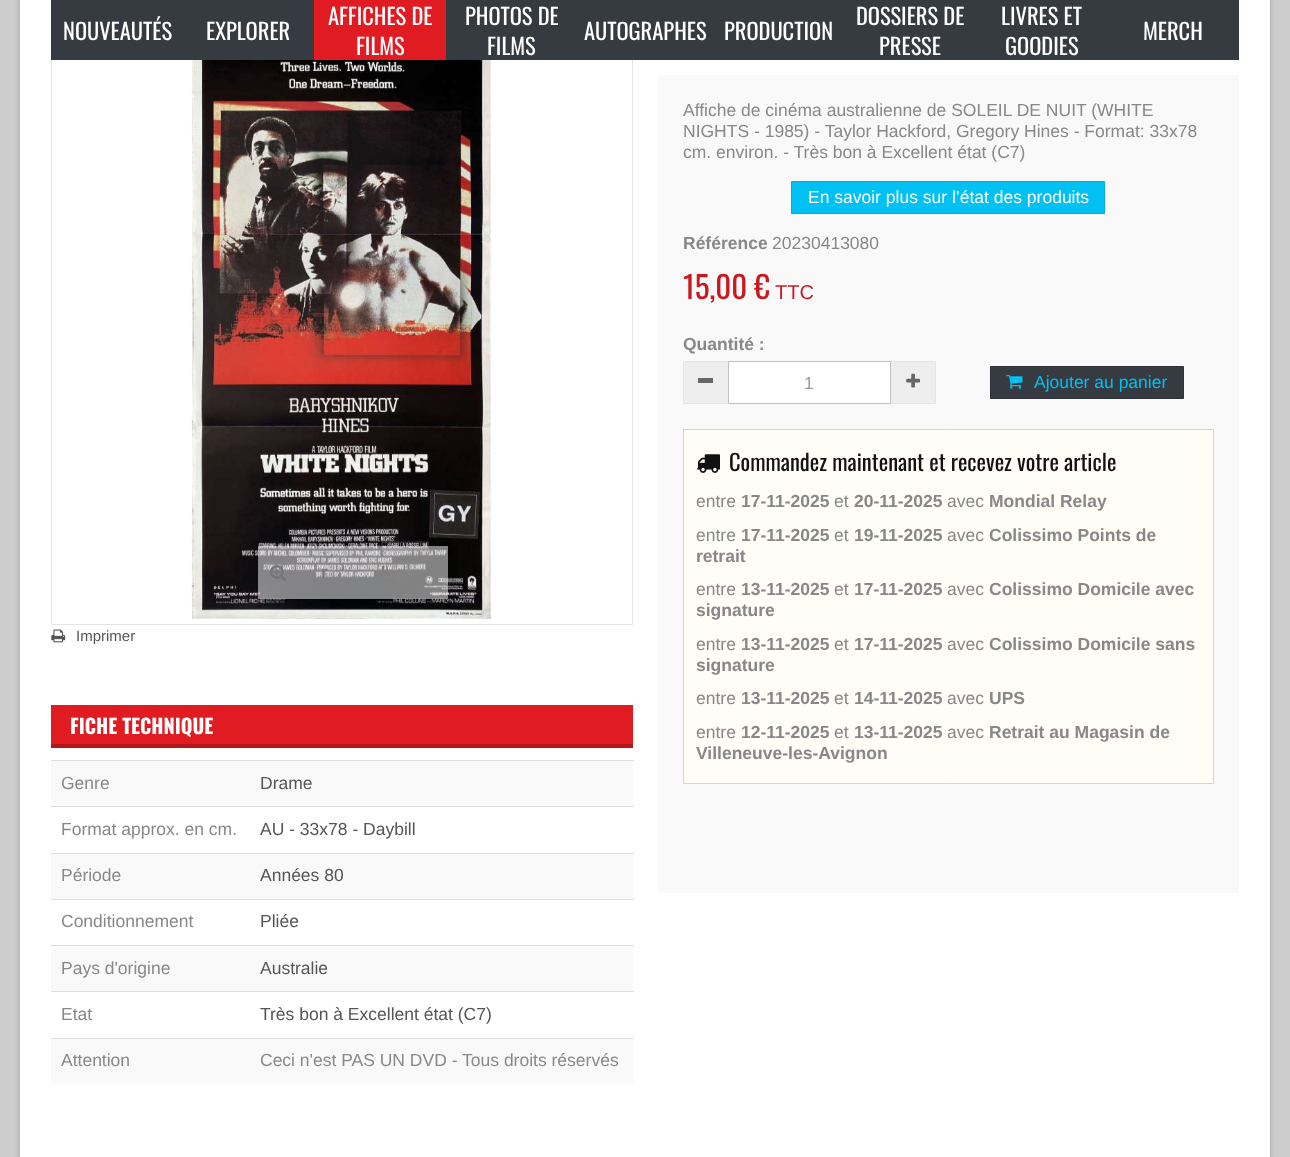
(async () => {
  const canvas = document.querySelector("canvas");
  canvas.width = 1290;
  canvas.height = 1157;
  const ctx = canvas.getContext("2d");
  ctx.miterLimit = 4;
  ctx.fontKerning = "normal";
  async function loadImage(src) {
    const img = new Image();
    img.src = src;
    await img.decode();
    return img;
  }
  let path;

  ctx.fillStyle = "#cccccc";
  ctx.fillRect(0, 0, 1290, 1157);
  ctx.fillStyle = "rgba(0, 0, 0, 0.2)";
  ctx.filter = "blur(2.5px)";
  ctx.beginPath();
  ctx.rect(20, -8, 1250, 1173);
  ctx.fill();
  ctx.filter = "none";
  ctx.fillStyle = "#ffffff";
  ctx.fillRect(20, 0, 1250, 1157);
  ctx.strokeStyle = "#e5e5e5";
  ctx.strokeRect(51.5, 39.5, 581, 585);
  ctx.fillStyle = "#363a41";
  ctx.fillRect(51, 0, 1188, 60);
  ctx.fillStyle = "#e11b22";
  ctx.fillRect(314, 0, 132, 60);
  ctx.drawImage(await loadImage("img/1.png"), 53, 60, 578, 559);
  ctx.save();
  path = new Path2D("M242 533H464V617H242ZM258 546H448V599H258Z");
  ctx.clip(path, "evenodd");
  ctx.fillStyle = "rgba(0, 0, 0, 0.16)";
  ctx.filter = "blur(5px)";
  ctx.beginPath();
  ctx.rect(258, 549, 190, 52);
  ctx.fill();
  ctx.filter = "none";
  ctx.restore();
  ctx.fillStyle = "rgba(255, 255, 255, 0.5)";
  ctx.fillRect(258, 546, 190, 53);
  ctx.drawImage(await loadImage("img/2.png"), 270, 565, 16, 16);
  ctx.drawImage(await loadImage("img/3.png"), 51, 629, 15, 14);
  ctx.fillStyle = "#f9f9f9";
  ctx.fillRect(658, 75, 581, 818);
  ctx.fillStyle = "#00c1f1";
  ctx.beginPath();
  ctx.rect(791.5, 181.5, 313, 32);
  ctx.fill();
  ctx.strokeStyle = "#00add8";
  ctx.stroke();
  ctx.fillStyle = "#eeeeee";
  ctx.beginPath();
  ctx.rect(683.5, 361.5, 45, 42);
  ctx.fill();
  ctx.strokeStyle = "#e5e5e5";
  ctx.stroke();
  ctx.fillStyle = "#666666";
  ctx.fillRect(698, 378, 15, 5);
  ctx.fillStyle = "#eeeeee";
  ctx.beginPath();
  ctx.rect(890.5, 361.5, 45, 42);
  ctx.fill();
  ctx.stroke();
  ctx.fillStyle = "#ffffff";
  ctx.beginPath();
  ctx.rect(728.5, 361.5, 162, 42);
  ctx.fill();
  ctx.strokeStyle = "#bdc2c9";
  ctx.stroke();
  ctx.drawImage(await loadImage("img/4.png"), 906, 373, 14, 15);
  ctx.fillStyle = "#363a41";
  ctx.beginPath();
  ctx.rect(990.5, 366.5, 193, 32);
  ctx.fill();
  ctx.strokeStyle = "#2f3339";
  ctx.stroke();
  ctx.drawImage(await loadImage("img/5.png"), 1006, 375, 17, 14);
  ctx.fillStyle = "#fffdf5";
  ctx.beginPath();
  ctx.rect(683.5, 429.5, 530, 354);
  ctx.fill();
  ctx.strokeStyle = "#e4d6ac";
  ctx.stroke();
  ctx.drawImage(await loadImage("img/6.png"), 697, 454, 23, 19);
  for (const [x, y, w, h, color] of [
    [51, 705, 582, 39, "#e11b22"],
    [51, 744, 582, 4, "#b3161b"],
    [51, 761, 582, 45, "#f9f9f9"],
    [51, 760, 583, 1, "#dddddd"],
    [51, 806, 583, 1, "#dddddd"],
    [51, 854, 582, 45, "#f9f9f9"],
    [51, 853, 583, 1, "#dddddd"],
    [51, 899, 583, 1, "#dddddd"],
    [51, 946, 582, 45, "#f9f9f9"],
    [51, 945, 583, 1, "#dddddd"],
    [51, 991, 583, 1, "#dddddd"],
    [51, 1039, 582, 45, "#f9f9f9"],
    [51, 1038, 583, 1, "#dddddd"],
  ]) {
    ctx.fillStyle = color;
    ctx.fillRect(x, y, w, h);
  }
  ctx.font = "22.5px Oswald";
  ctx.fillStyle = "#ffffff";
  for (const [text, x, y] of [
    ["NOUVEAUTÉS", 63, 40],
    ["EXPLORER", 206, 40],
    ["AFFICHES DE", 328, 25],
    ["FILMS", 356, 55],
    ["PHOTOS DE", 465, 25],
    ["FILMS", 487, 55],
    ["AUTOGRAPHES", 584, 40],
    ["PRODUCTION", 724, 40],
    ["DOSSIERS DE", 856, 25],
    ["PRESSE", 879, 55],
    ["LIVRES ET", 1001, 25],
    ["GOODIES", 1005, 55],
    ["MERCH", 1143, 40],
  ]) {
    ctx.fillText(text, x, y);
  }
  ctx.font = "bold 17.5px Liberation Sans";
  ctx.fillStyle = "#777676";
  ctx.fillText("r", 321, 578);
  ctx.fillText("'", 381, 578);
  ctx.font = "15px Liberation Sans";
  ctx.fillStyle = "#555555";
  ctx.fillText("Imprimer", 76, 641);
  ctx.font = "17.5px Liberation Sans";
  ctx.fillStyle = "#888888";
  for (const [text, x, y] of [
    ["Affiche de cinéma australienne de SOLEIL DE NUIT (WHITE", 683, 116],
    ["NIGHTS - 1985) - Taylor Hackford, Gregory Hines - Format: 33x78", 683, 137],
    ["cm. environ. - Très bon à Excellent état (C7)", 683, 158],
  ]) {
    ctx.fillText(text, x, y);
  }
  ctx.fillStyle = "#ffffff";
  ctx.fillText("En savoir plus sur l’état des produits", 808, 203);
  ctx.font = "bold 17.5px Liberation Sans";
  ctx.fillStyle = "#888888";
  ctx.fillText("Référence", 683, 249);
  ctx.font = "17.5px Liberation Sans";
  ctx.fillText("20230413080", 772, 249);
  ctx.font = "31px Oswald";
  ctx.fillStyle = "#ca181f";
  ctx.fillText("15,00 €", 683, 299);
  ctx.font = "20px Liberation Sans";
  ctx.fillText("TTC", 775, 299);
  ctx.font = "bold 17.5px Liberation Sans";
  ctx.fillStyle = "#888888";
  ctx.fillText("Quantité :", 683, 350);
  ctx.font = "17.5px Liberation Sans";
  ctx.fillStyle = "#9b9b9b";
  ctx.fillText("1", 804, 389);
  ctx.fillStyle = "#00c1f1";
  ctx.fillText("Ajouter au panier", 1034, 388);
  ctx.font = "22.5px Oswald";
  ctx.fillStyle = "#111111";
  ctx.fillText("Commandez maintenant et recevez votre article", 729, 471);
  ctx.font = "17.5px Liberation Sans";
  ctx.fillStyle = "#888888";
  ctx.fillText("entre", 696, 507);
  ctx.font = "bold 17.5px Liberation Sans";
  ctx.fillText("17-11-2025", 741, 507);
  ctx.font = "17.5px Liberation Sans";
  ctx.fillText("et", 834, 507);
  ctx.font = "bold 17.5px Liberation Sans";
  ctx.fillText("20-11-2025", 854, 507);
  ctx.font = "17.5px Liberation Sans";
  ctx.fillText("avec", 947, 507);
  ctx.font = "bold 17.5px Liberation Sans";
  ctx.fillText("Mondial Relay", 989, 507);
  ctx.font = "17.5px Liberation Sans";
  ctx.fillText("entre", 696, 541);
  ctx.font = "bold 17.5px Liberation Sans";
  ctx.fillText("17-11-2025", 741, 541);
  ctx.font = "17.5px Liberation Sans";
  ctx.fillText("et", 834, 541);
  ctx.font = "bold 17.5px Liberation Sans";
  ctx.fillText("19-11-2025", 854, 541);
  ctx.font = "17.5px Liberation Sans";
  ctx.fillText("avec", 947, 541);
  ctx.font = "bold 17.5px Liberation Sans";
  ctx.fillText("Colissimo Points de", 989, 541);
  ctx.fillText("retrait", 696, 562);
  ctx.font = "17.5px Liberation Sans";
  ctx.fillText("entre", 696, 595);
  ctx.font = "bold 17.5px Liberation Sans";
  ctx.fillText("13-11-2025", 741, 595);
  ctx.font = "17.5px Liberation Sans";
  ctx.fillText("et", 834, 595);
  ctx.font = "bold 17.5px Liberation Sans";
  ctx.fillText("17-11-2025", 854, 595);
  ctx.font = "17.5px Liberation Sans";
  ctx.fillText("avec", 947, 595);
  ctx.font = "bold 17.5px Liberation Sans";
  ctx.fillText("Colissimo Domicile avec", 989, 595);
  ctx.fillText("signature", 696, 616);
  ctx.font = "17.5px Liberation Sans";
  ctx.fillText("entre", 696, 650);
  ctx.font = "bold 17.5px Liberation Sans";
  ctx.fillText("13-11-2025", 741, 650);
  ctx.font = "17.5px Liberation Sans";
  ctx.fillText("et", 834, 650);
  ctx.font = "bold 17.5px Liberation Sans";
  ctx.fillText("17-11-2025", 854, 650);
  ctx.font = "17.5px Liberation Sans";
  ctx.fillText("avec", 947, 650);
  ctx.font = "bold 17.5px Liberation Sans";
  ctx.fillText("Colissimo Domicile sans", 989, 650);
  ctx.fillText("signature", 696, 671);
  ctx.font = "17.5px Liberation Sans";
  ctx.fillText("entre", 696, 704);
  ctx.font = "bold 17.5px Liberation Sans";
  ctx.fillText("13-11-2025", 741, 704);
  ctx.font = "17.5px Liberation Sans";
  ctx.fillText("et", 834, 704);
  ctx.font = "bold 17.5px Liberation Sans";
  ctx.fillText("14-11-2025", 854, 704);
  ctx.font = "17.5px Liberation Sans";
  ctx.fillText("avec", 947, 704);
  ctx.font = "bold 17.5px Liberation Sans";
  ctx.fillText("UPS", 989, 704);
  ctx.font = "17.5px Liberation Sans";
  ctx.fillText("entre", 696, 738);
  ctx.font = "bold 17.5px Liberation Sans";
  ctx.fillText("12-11-2025", 741, 738);
  ctx.font = "17.5px Liberation Sans";
  ctx.fillText("et", 834, 738);
  ctx.font = "bold 17.5px Liberation Sans";
  ctx.fillText("13-11-2025", 854, 738);
  ctx.font = "17.5px Liberation Sans";
  ctx.fillText("avec", 947, 738);
  ctx.font = "bold 17.5px Liberation Sans";
  ctx.fillText("Retrait au Magasin de", 989, 738);
  ctx.fillText("Villeneuve-les-Avignon", 696, 759);
  ctx.font = "bold 20px Oswald";
  ctx.fillStyle = "#ffffff";
  ctx.fillText("FICHE TECHNIQUE", 70, 734);
  ctx.font = "17.5px Liberation Sans";
  ctx.fillStyle = "#888888";
  ctx.fillText("Genre", 61, 789);
  ctx.fillStyle = "#555555";
  ctx.fillText("Drame", 260, 789);
  ctx.fillStyle = "#888888";
  ctx.fillText("Format approx. en cm.", 61, 835);
  ctx.fillStyle = "#555555";
  ctx.fillText("AU - 33x78 - Daybill", 260, 835);
  ctx.fillStyle = "#888888";
  ctx.fillText("Période", 61, 881);
  ctx.fillStyle = "#555555";
  ctx.fillText("Années 80", 260, 881);
  ctx.fillStyle = "#888888";
  ctx.fillText("Conditionnement", 61, 927);
  ctx.fillStyle = "#555555";
  ctx.fillText("Pliée", 260, 927);
  ctx.fillStyle = "#888888";
  ctx.fillText("Pays d'origine", 61, 974);
  ctx.fillStyle = "#555555";
  ctx.fillText("Australie", 260, 974);
  ctx.fillStyle = "#888888";
  ctx.fillText("Etat", 61, 1020);
  ctx.fillStyle = "#555555";
  ctx.fillText("Très bon à Excellent état (C7)", 260, 1020);
  ctx.fillStyle = "#888888";
  ctx.fillText("Attention", 61, 1066);
  ctx.fillText("Ceci n'est PAS UN DVD - Tous droits réservés", 260, 1066);
})();
